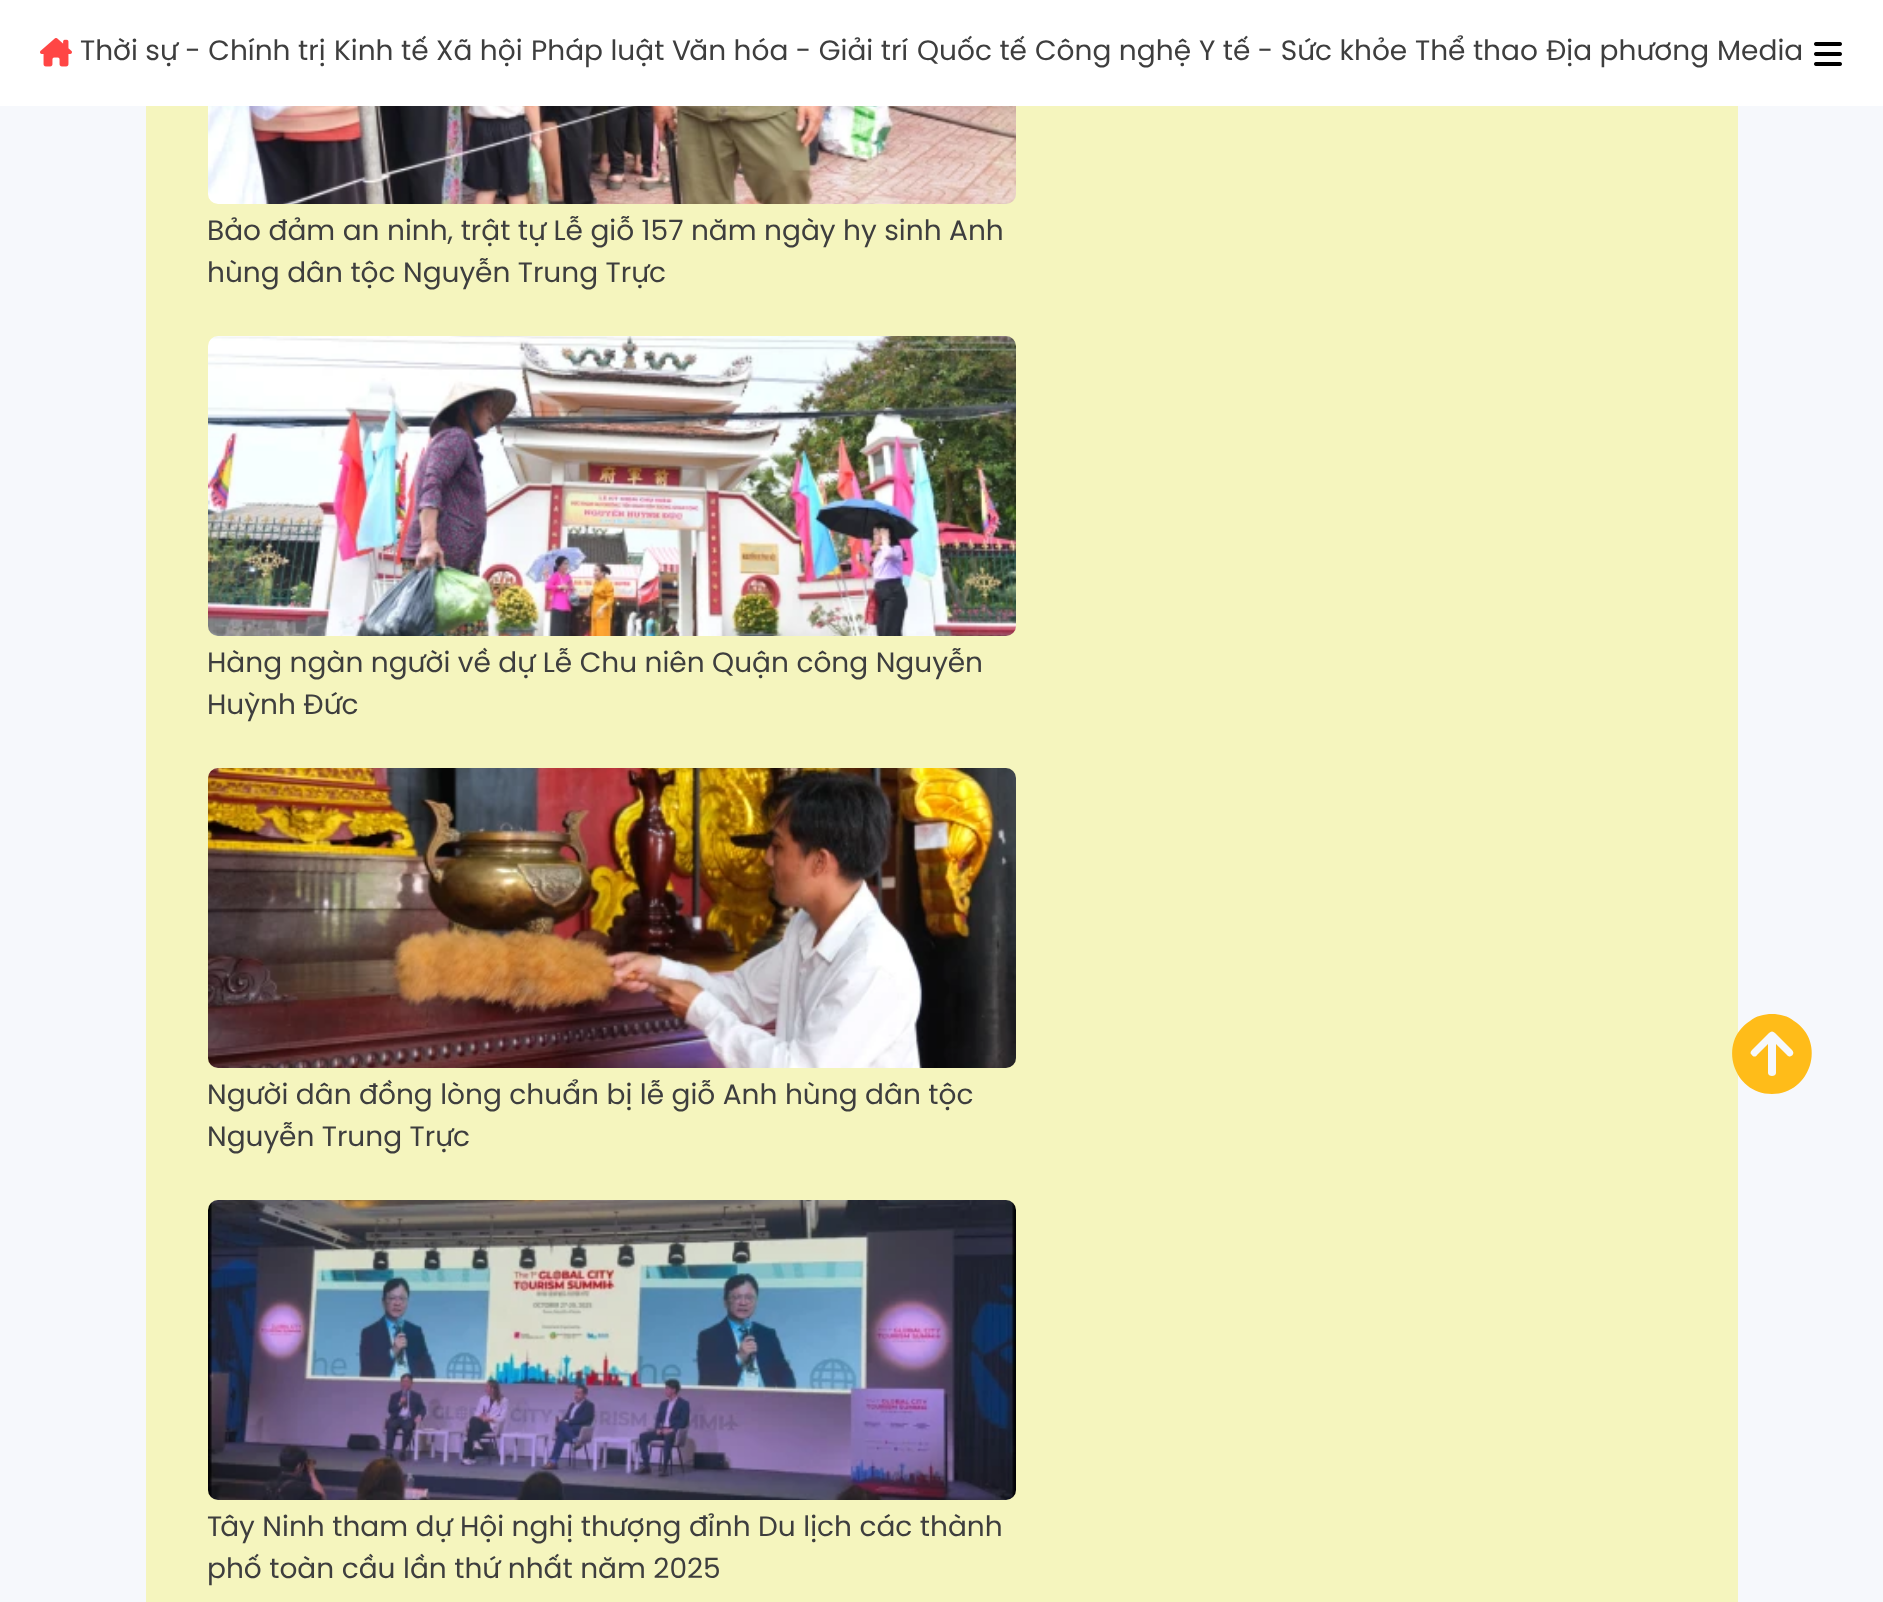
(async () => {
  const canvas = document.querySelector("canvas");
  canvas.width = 1883;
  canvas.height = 1602;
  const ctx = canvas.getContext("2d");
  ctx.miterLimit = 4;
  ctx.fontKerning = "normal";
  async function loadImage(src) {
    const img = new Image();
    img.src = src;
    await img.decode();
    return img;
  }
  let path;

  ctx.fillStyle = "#f6f8fc";
  ctx.fillRect(0, 0, 1883, 1602);
  ctx.fillStyle = "#ffffff";
  ctx.fillRect(0, 0, 1883, 106);
  ctx.drawImage(await loadImage("img/1.png"), 40, 38, 32, 29);
  ctx.drawImage(await loadImage("img/2.png"), 1814, 42, 28, 24);
  ctx.fillStyle = "#f5f5be";
  ctx.fillRect(146, 106, 1592, 1496);
  ctx.drawImage(await loadImage("img/3.png"), 208, 106, 808, 98);
  ctx.drawImage(await loadImage("img/4.png"), 208, 336, 808, 300);
  ctx.drawImage(await loadImage("img/5.png"), 208, 768, 808, 300);
  ctx.drawImage(await loadImage("img/6.png"), 208, 1200, 808, 300);
  ctx.fillStyle = "#ffbc19";
  path = new Path2D("M1772 1094C1811 1094 1827 1042 1794 1021C1788 1016 1780 1014 1772 1014C1764 1014 1756 1016 1750 1021C1717 1042 1733 1094 1772 1094ZM1792 1050C1796 1054 1790 1059 1787 1055L1776 1044V1073C1776 1075 1774 1076 1772 1076C1770 1076 1768 1075 1768 1073V1044L1757 1055C1756 1057 1753 1057 1752 1055C1750 1054 1750 1052 1752 1050L1769 1033C1771 1031 1773 1031 1775 1033Z");
  ctx.fill(path);
  ctx.font = "28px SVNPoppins";
  ctx.fillStyle = "#3e3e3e";
  for (const [text, x, y] of [
    ["Thời sự - Chính trị", 80, 60],
    ["Kinh tế", 334, 60],
    ["Xã hội", 436, 60],
    ["Pháp luật", 531, 60],
    ["Văn hóa - Giải trí", 672, 60],
    ["Quốc tế", 917, 60],
    ["Công nghệ", 1035, 60],
    ["Y tế - Sức khỏe", 1199, 60],
    ["Thể thao", 1415, 60],
    ["Địa phương", 1546, 60],
    ["Media", 1717, 60],
    ["Bảo đảm an ninh, trật tự Lễ giỗ 157 năm ngày hy sinh Anh", 207, 240],
    ["hùng dân tộc Nguyễn Trung Trực", 207, 282],
    ["Hàng ngàn người về dự Lễ Chu niên Quận công Nguyễn", 207, 672],
    ["Huỳnh Đức", 207, 714],
    ["Người dân đồng lòng chuẩn bị lễ giỗ Anh hùng dân tộc", 207, 1104],
    ["Nguyễn Trung Trực", 207, 1146],
    ["Tây Ninh tham dự Hội nghị thượng đỉnh Du lịch các thành", 207, 1536],
    ["phố toàn cầu lần thứ nhất năm 2025", 207, 1578],
  ]) {
    ctx.fillText(text, x, y);
  }
})();
